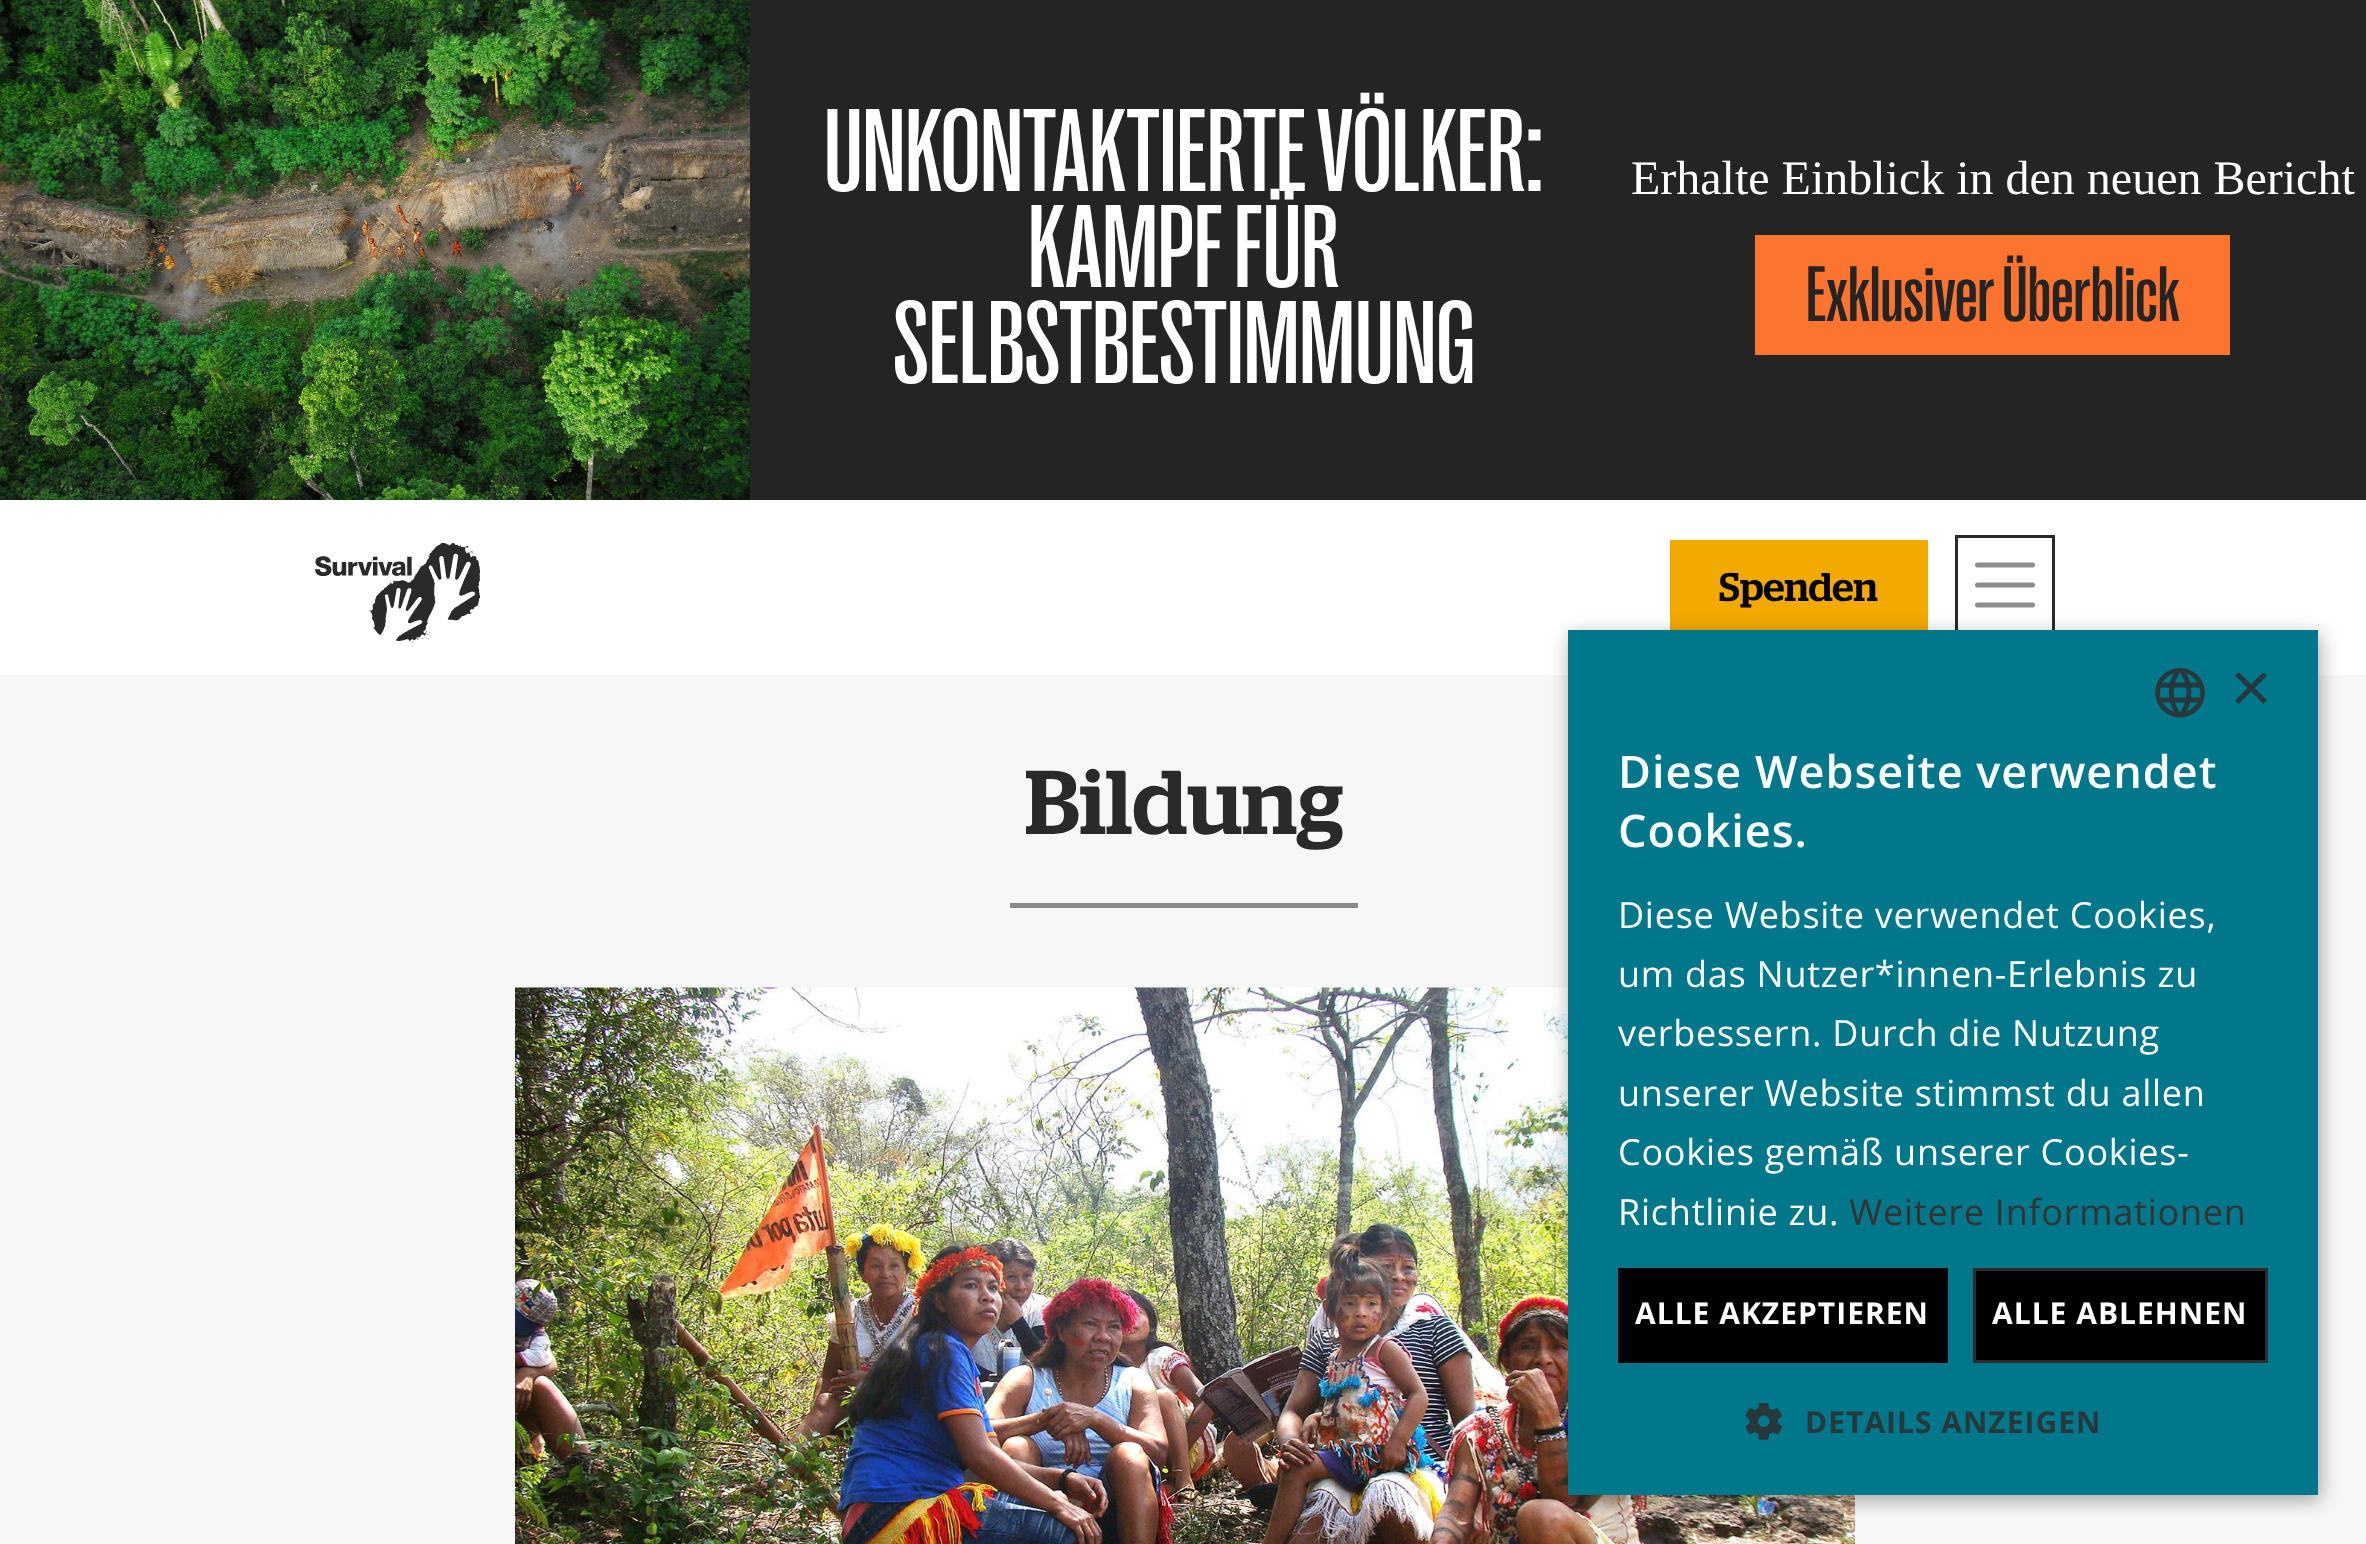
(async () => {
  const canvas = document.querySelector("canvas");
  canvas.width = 2366;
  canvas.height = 1544;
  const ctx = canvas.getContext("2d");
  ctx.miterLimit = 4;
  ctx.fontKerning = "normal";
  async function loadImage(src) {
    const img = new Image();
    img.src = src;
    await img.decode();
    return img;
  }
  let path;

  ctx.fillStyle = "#f7f7f7";
  ctx.fillRect(0, 0, 2366, 1544);
  ctx.fillStyle = "#242424";
  ctx.fillRect(750, 0, 1616, 500);
  ctx.drawImage(await loadImage("img/1.png"), 0, 0, 750, 500);
  ctx.fillStyle = "#fd742f";
  ctx.fillRect(1755, 235, 475, 120);
  ctx.fillStyle = "#ffffff";
  ctx.fillRect(0, 500, 2366, 175);
  ctx.drawImage(await loadImage("img/2.png"), 315, 543, 165, 100);
  ctx.fillStyle = "#f2a900";
  ctx.fillRect(1670, 540, 258, 90);
  ctx.strokeStyle = "#2c2a29";
  ctx.lineWidth = 3;
  ctx.strokeRect(1956.5, 536.5, 97, 97);
  path = new Path2D("M1977.5 565H2032.5M1977.5 585H2032.5M1977.5 605H2032.5");
  ctx.strokeStyle = "#8c8c8c";
  ctx.lineWidth = 5;
  ctx.lineCap = "round";
  ctx.stroke(path);
  ctx.fillStyle = "#888888";
  ctx.fillRect(1010, 903, 348, 5);
  ctx.drawImage(await loadImage("img/3.png"), 515, 987, 1340, 557);
  ctx.fillStyle = "rgba(0, 0, 0, 0.35)";
  ctx.filter = "blur(10px)";
  ctx.beginPath();
  ctx.rect(1570, 635, 750, 865);
  ctx.fill();
  ctx.filter = "none";
  ctx.fillStyle = "#00778b";
  ctx.fillRect(1568, 630, 750, 865);
  ctx.drawImage(await loadImage("img/4.png"), 2155, 668, 50, 50);
  ctx.fillStyle = "#000000";
  ctx.fillRect(1618, 1268, 330, 95);
  ctx.beginPath();
  ctx.rect(1974.5, 1269.5, 292, 92);
  ctx.fill();
  ctx.strokeStyle = "#2d2d2d";
  ctx.lineWidth = 3;
  ctx.stroke();
  ctx.drawImage(await loadImage("img/5.png"), 1745, 1403, 38, 37);
  ctx.font = "500 120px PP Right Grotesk";
  ctx.fillStyle = "#ffffff";
  for (const [text, x, y] of [
    ["UNKONTAKTIERTE VÖLKER:", 824, 191],
    ["KAMPF FÜR", 1028, 287],
    ["SELBSTBESTIMMUNG", 893, 383],
  ]) {
    ctx.fillText(text, x, y);
  }
  ctx.font = "48px Tinos";
  ctx.fillText("Erhalte Einblick in den neuen Bericht", 1631, 194);
  ctx.font = "500 80px PP Right Grotesk";
  ctx.fillStyle = "#242424";
  ctx.fillText("Exklusiver Überblick", 1806, 321);
  ctx.font = "500 40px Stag";
  ctx.fillStyle = "#000000";
  ctx.fillText("Spenden", 1719, 601);
  ctx.font = "500 90.5px Stag";
  ctx.fillStyle = "#2c2a29";
  ctx.fillText("Bildung", 1025, 834);
  ctx.save();
  ctx.beginPath();
  ctx.rect(2230, 673, 38, 37);
  ctx.clip();
  ctx.font = "72px Liberation Sans";
  ctx.fillStyle = "#26383b";
  ctx.fillText("×", 2230, 712);
  ctx.restore();
  ctx.letterSpacing = "1px";
  ctx.font = "600 45px Open Sans";
  ctx.fillStyle = "#ffffff";
  ctx.fillText("Diese Webseite verwendet", 1618, 788);
  ctx.fillText("Cookies.", 1618, 847);
  ctx.letterSpacing = "0.75px";
  ctx.font = "36px Open Sans";
  for (const [text, x, y] of [
    ["Diese Website verwendet Cookies,", 1618, 928],
    ["um das Nutzer*innen-Erlebnis zu", 1618, 987],
    ["verbessern. Durch die Nutzung", 1618, 1046],
    ["unserer Website stimmst du allen", 1618, 1106],
    ["Cookies gemäß unserer Cookies-", 1618, 1165],
    ["Richtlinie zu.", 1618, 1225],
  ]) {
    ctx.fillText(text, x, y);
  }
  ctx.fillStyle = "#333333";
  ctx.fillText("Weitere Informationen", 1849, 1225);
  ctx.letterSpacing = "1px";
  ctx.font = "bold 30px Open Sans";
  ctx.fillStyle = "#ffffff";
  ctx.fillText("ALLE AKZEPTIEREN", 1635, 1324);
  ctx.fillText("ALLE ABLEHNEN", 1992, 1324);
  ctx.fillStyle = "#26383b";
  ctx.fillText("DETAILS ANZEIGEN", 1805, 1433);
})();
